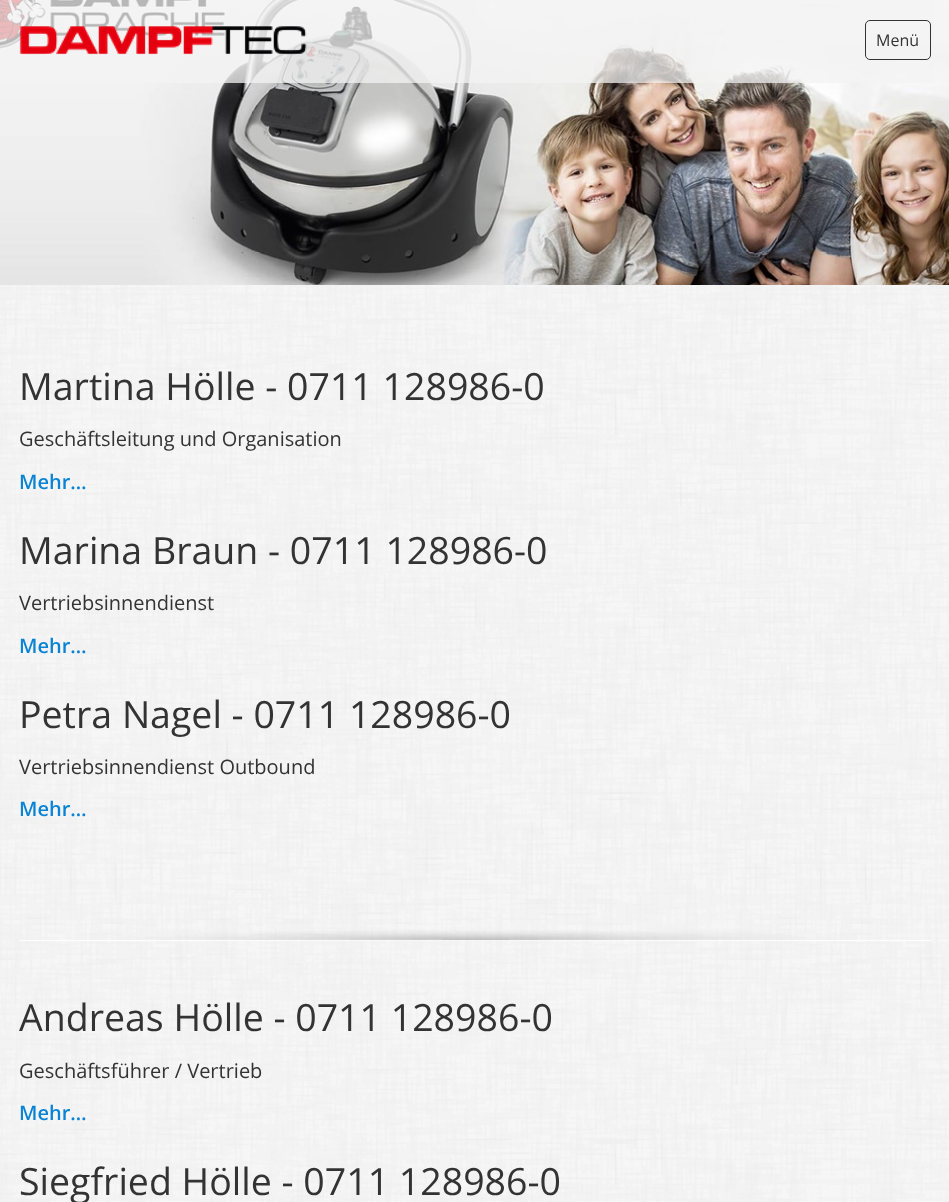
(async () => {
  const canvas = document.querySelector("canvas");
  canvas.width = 949;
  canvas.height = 1202;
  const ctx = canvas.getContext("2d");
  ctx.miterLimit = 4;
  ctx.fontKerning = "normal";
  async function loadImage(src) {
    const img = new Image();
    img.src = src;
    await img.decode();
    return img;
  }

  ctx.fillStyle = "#ffffff";
  ctx.fillRect(0, 0, 949, 1202);
  ctx.drawImage(await loadImage("img/1.png"), 0, 285, 949, 917);
  ctx.drawImage(await loadImage("img/2.png"), 0, 0, 949, 285);
  ctx.fillStyle = "rgba(243, 243, 243, 0.75)";
  ctx.fillRect(0, 0, 934, 83);
  ctx.drawImage(await loadImage("img/3.png"), 19, 26, 288, 29);
  ctx.beginPath();
  ctx.roundRect(865.5, 20.5, 65, 39, 4.5);
  ctx.strokeStyle = "#333333";
  ctx.stroke();
  ctx.drawImage(await loadImage("img/4.png"), 19, 930, 912, 11);
  ctx.font = "16px Open Sans";
  ctx.fillStyle = "#333333";
  ctx.fillText("Menü", 876, 46);
  ctx.font = "37.5px Open Sans";
  ctx.fillText("Martina Hölle - 0711 128986-0", 19, 400);
  ctx.font = "20px Open Sans";
  ctx.fillText("Geschäftsleitung und Organisation", 19, 446);
  ctx.font = "600 20px Open Sans";
  ctx.fillStyle = "#0983d3";
  ctx.fillText("Mehr…", 19, 489);
  ctx.font = "37.5px Open Sans";
  ctx.fillStyle = "#333333";
  ctx.fillText("Marina Braun - 0711 128986-0", 19, 564);
  ctx.font = "20px Open Sans";
  ctx.fillText("Vertriebsinnendienst", 19, 610);
  ctx.font = "600 20px Open Sans";
  ctx.fillStyle = "#0983d3";
  ctx.fillText("Mehr…", 19, 653);
  ctx.font = "37.5px Open Sans";
  ctx.fillStyle = "#333333";
  ctx.fillText("Petra Nagel - 0711 128986-0", 19, 728);
  ctx.font = "20px Open Sans";
  ctx.fillText("Vertriebsinnendienst Outbound", 19, 774);
  ctx.font = "600 20px Open Sans";
  ctx.fillStyle = "#0983d3";
  ctx.fillText("Mehr…", 19, 816);
  ctx.font = "37.5px Open Sans";
  ctx.fillStyle = "#333333";
  ctx.fillText("Andreas Hölle - 0711 128986-0", 19, 1031);
  ctx.font = "20px Open Sans";
  ctx.fillText("Geschäftsführer / Vertrieb", 19, 1078);
  ctx.font = "600 20px Open Sans";
  ctx.fillStyle = "#0983d3";
  ctx.fillText("Mehr…", 19, 1120);
  ctx.font = "37.5px Open Sans";
  ctx.fillStyle = "#333333";
  ctx.fillText("Siegfried Hölle - 0711 128986-0", 19, 1195);
})();
